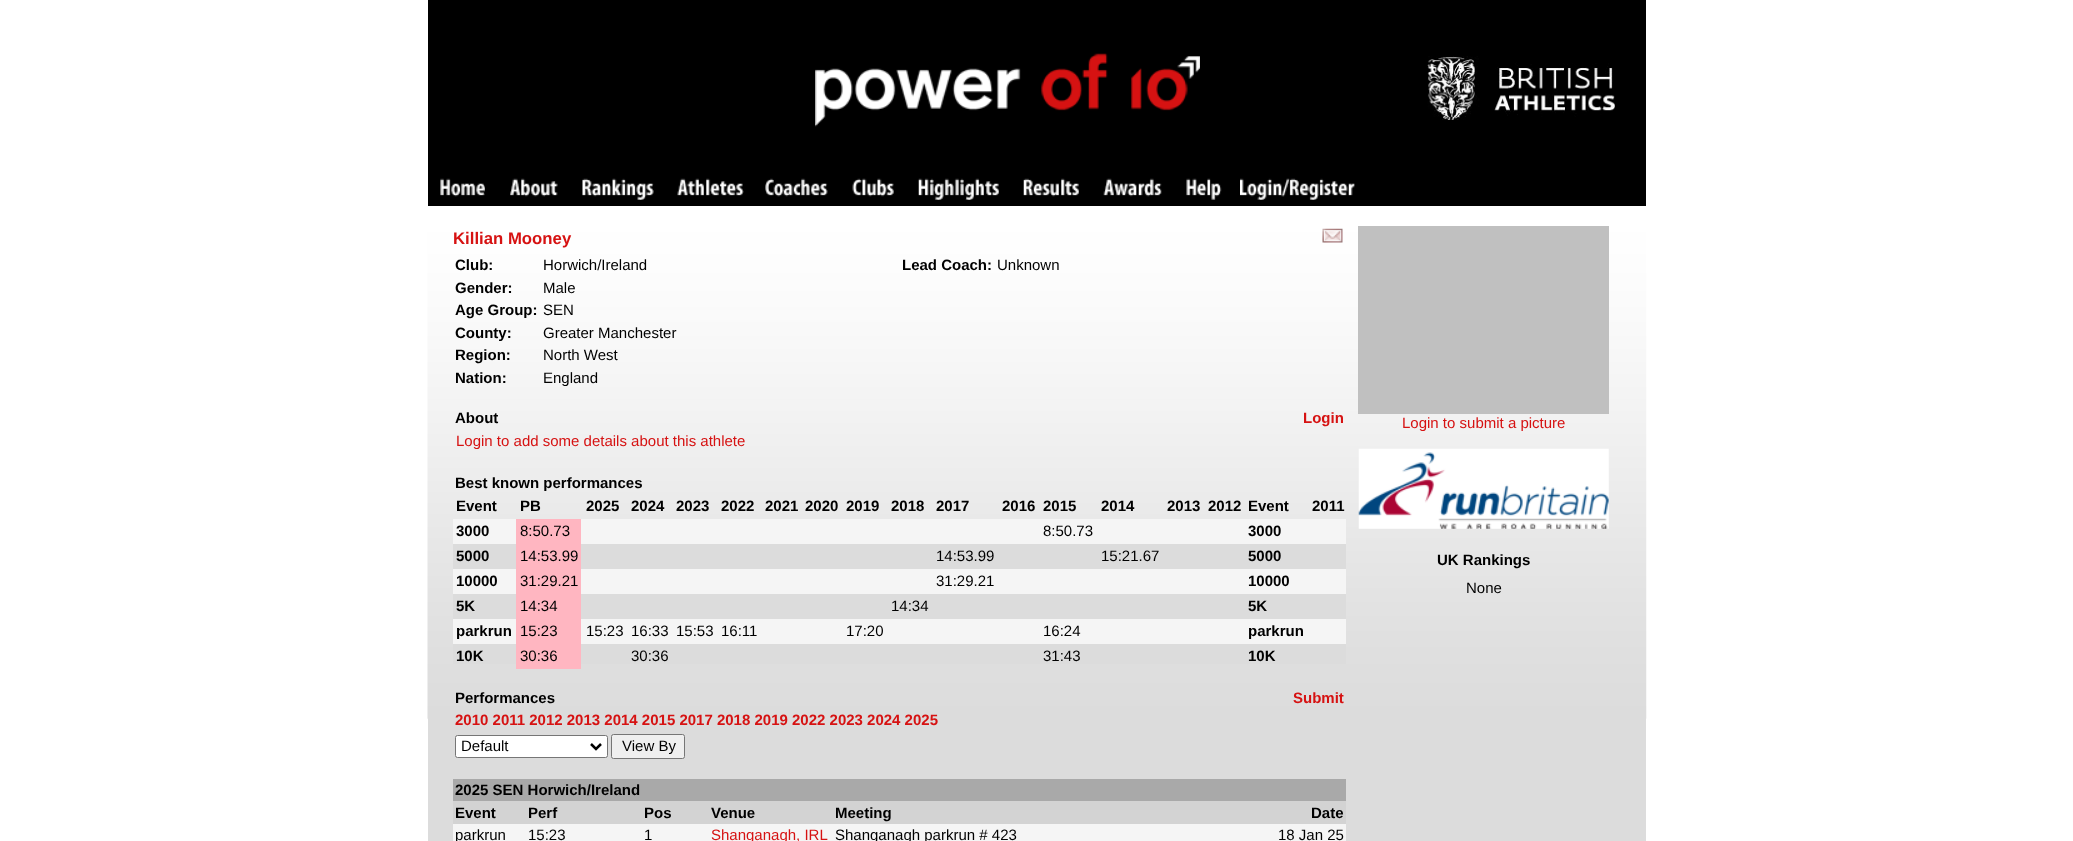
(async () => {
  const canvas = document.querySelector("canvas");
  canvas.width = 2073;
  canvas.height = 841;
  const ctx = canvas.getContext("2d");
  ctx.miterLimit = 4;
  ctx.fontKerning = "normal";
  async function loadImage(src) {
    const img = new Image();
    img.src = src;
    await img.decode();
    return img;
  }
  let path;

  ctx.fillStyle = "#ffffff";
  ctx.fillRect(0, 0, 2073, 841);
  ctx.fillStyle = "#000000";
  ctx.fillRect(428, 0, 1218, 206);
  ctx.drawImage(await loadImage("img/1.png"), 815, 53, 385, 74);
  ctx.drawImage(await loadImage("img/2.png"), 1427, 56, 188, 64);
  ctx.drawImage(await loadImage("img/3.png"), 440, 178, 45, 19);
  ctx.drawImage(await loadImage("img/4.png"), 510, 178, 48, 19);
  ctx.drawImage(await loadImage("img/5.png"), 582, 178, 72, 22);
  ctx.drawImage(await loadImage("img/6.png"), 677, 178, 67, 18);
  ctx.drawImage(await loadImage("img/7.png"), 765, 178, 63, 19);
  ctx.drawImage(await loadImage("img/8.png"), 852, 178, 42, 19);
  ctx.drawImage(await loadImage("img/9.png"), 918, 178, 81, 22);
  ctx.drawImage(await loadImage("img/10.png"), 1023, 178, 56, 19);
  ctx.drawImage(await loadImage("img/11.png"), 1103, 178, 59, 19);
  ctx.drawImage(await loadImage("img/12.png"), 1186, 178, 36, 22);
  ctx.drawImage(await loadImage("img/13.png"), 1240, 178, 115, 22);
  ctx.fillStyle = "#dcdcdc";
  ctx.fillRect(428, 718, 1218, 123);
  ctx.drawImage(await loadImage("img/14.png"), 427, 219, 1220, 500);
  ctx.drawImage(await loadImage("img/15.png"), 1322, 228, 21, 15);
  for (const [x, y, w, h, color] of [
    [453, 519, 893, 25, "#f5f5f5"],
    [516, 519, 65, 25, "#ffb6c1"],
    [453, 544, 893, 25, "#dcdcdc"],
    [516, 544, 65, 25, "#ffb6c1"],
    [453, 569, 893, 25, "#f5f5f5"],
    [516, 569, 65, 25, "#ffb6c1"],
    [453, 594, 893, 25, "#dcdcdc"],
    [516, 594, 65, 25, "#ffb6c1"],
    [453, 619, 893, 25, "#f5f5f5"],
    [516, 619, 65, 25, "#ffb6c1"],
    [453, 644, 893, 20, "#dcdcdc"],
    [516, 644, 65, 25, "#ffb6c1"],
  ]) {
    ctx.fillStyle = color;
    ctx.fillRect(x, y, w, h);
  }
  ctx.fillStyle = "#ffffff";
  ctx.beginPath();
  ctx.roundRect(455.5, 735.5, 152, 22, 2);
  ctx.fill();
  ctx.strokeStyle = "#767676";
  ctx.stroke();
  path = new Path2D("M591 744L596 749L601 744");
  ctx.strokeStyle = "#000000";
  ctx.lineWidth = 2.5;
  ctx.stroke(path);
  ctx.fillStyle = "#efefef";
  ctx.beginPath();
  ctx.roundRect(611.5, 734.5, 73, 24, 2);
  ctx.fill();
  ctx.strokeStyle = "#767676";
  ctx.lineWidth = 1;
  ctx.stroke();
  for (const [x, y, w, h, color] of [
    [453, 779, 893, 22, "#a9a9a9"],
    [453, 801, 893, 23, "#d3d3d3"],
    [453, 824, 893, 17, "#f5f5f5"],
    [1358, 226, 251, 188, "#c0c0c0"],
  ]) {
    ctx.fillStyle = color;
    ctx.fillRect(x, y, w, h);
  }
  ctx.drawImage(await loadImage("img/16.png"), 1358, 448, 251, 81);
  ctx.font = "bold 16.75px Liberation Sans";
  ctx.fillStyle = "#d61212";
  ctx.fillText("Killian Mooney", 453, 244);
  ctx.font = "bold 15px Liberation Sans";
  ctx.fillStyle = "#000000";
  ctx.fillText("Club:", 455, 270);
  ctx.font = "15px Liberation Sans";
  ctx.fillText("Horwich/Ireland", 543, 270);
  ctx.font = "bold 15px Liberation Sans";
  ctx.fillText("Gender:", 455, 293);
  ctx.font = "15px Liberation Sans";
  ctx.fillText("Male", 543, 293);
  ctx.font = "bold 15px Liberation Sans";
  ctx.fillText("Age Group:", 455, 315);
  ctx.font = "15px Liberation Sans";
  ctx.fillText("SEN", 543, 315);
  ctx.font = "bold 15px Liberation Sans";
  ctx.fillText("County:", 455, 338);
  ctx.font = "15px Liberation Sans";
  ctx.fillText("Greater Manchester", 543, 338);
  ctx.font = "bold 15px Liberation Sans";
  ctx.fillText("Region:", 455, 360);
  ctx.font = "15px Liberation Sans";
  ctx.fillText("North West", 543, 360);
  ctx.font = "bold 15px Liberation Sans";
  ctx.fillText("Nation:", 455, 383);
  ctx.font = "15px Liberation Sans";
  ctx.fillText("England", 543, 383);
  ctx.font = "bold 15px Liberation Sans";
  ctx.fillText("Lead Coach:", 902, 270);
  ctx.font = "15px Liberation Sans";
  ctx.fillText("Unknown", 997, 270);
  ctx.font = "bold 15px Liberation Sans";
  ctx.fillText("About", 455, 423);
  ctx.fillStyle = "#d61212";
  ctx.fillText("Login", 1303, 423);
  ctx.font = "15px Liberation Sans";
  ctx.fillText("Login to add some details about this athlete", 456, 446);
  ctx.font = "bold 15px Liberation Sans";
  ctx.fillStyle = "#000000";
  for (const [text, x, y] of [
    ["Best known performances", 455, 488],
    ["Event", 456, 511],
    ["PB", 520, 511],
    ["2025", 586, 511],
    ["2024", 631, 511],
    ["2023", 676, 511],
    ["2022", 721, 511],
    ["2021", 765, 511],
    ["2020", 805, 511],
    ["2019", 846, 511],
    ["2018", 891, 511],
    ["2017", 936, 511],
    ["2016", 1002, 511],
    ["2015", 1043, 511],
    ["2014", 1101, 511],
    ["2013", 1167, 511],
    ["2012", 1208, 511],
    ["Event", 1248, 511],
    ["2011", 1312, 511],
    ["3000", 456, 536],
  ]) {
    ctx.fillText(text, x, y);
  }
  ctx.font = "15px Liberation Sans";
  ctx.fillText("8:50.73", 520, 536);
  ctx.fillText("8:50.73", 1043, 536);
  ctx.font = "bold 15px Liberation Sans";
  ctx.fillText("3000", 1248, 536);
  ctx.fillText("5000", 456, 561);
  ctx.font = "15px Liberation Sans";
  for (const [text, x, y] of [
    ["14:53.99", 520, 561],
    ["14:53.99", 936, 561],
    ["15:21.67", 1101, 561],
  ]) {
    ctx.fillText(text, x, y);
  }
  ctx.font = "bold 15px Liberation Sans";
  ctx.fillText("5000", 1248, 561);
  ctx.fillText("10000", 456, 586);
  ctx.font = "15px Liberation Sans";
  ctx.fillText("31:29.21", 520, 586);
  ctx.fillText("31:29.21", 936, 586);
  ctx.font = "bold 15px Liberation Sans";
  ctx.fillText("10000", 1248, 586);
  ctx.fillText("5K", 456, 611);
  ctx.font = "15px Liberation Sans";
  ctx.fillText("14:34", 520, 611);
  ctx.fillText("14:34", 891, 611);
  ctx.font = "bold 15px Liberation Sans";
  ctx.fillText("5K", 1248, 611);
  ctx.fillText("parkrun", 456, 636);
  ctx.font = "15px Liberation Sans";
  for (const [text, x, y] of [
    ["15:23", 520, 636],
    ["15:23", 586, 636],
    ["16:33", 631, 636],
    ["15:53", 676, 636],
    ["16:11", 721, 636],
    ["17:20", 846, 636],
    ["16:24", 1043, 636],
  ]) {
    ctx.fillText(text, x, y);
  }
  ctx.font = "bold 15px Liberation Sans";
  ctx.fillText("parkrun", 1248, 636);
  ctx.fillText("10K", 456, 661);
  ctx.font = "15px Liberation Sans";
  for (const [text, x, y] of [
    ["30:36", 520, 661],
    ["30:36", 631, 661],
    ["31:43", 1043, 661],
  ]) {
    ctx.fillText(text, x, y);
  }
  ctx.font = "bold 15px Liberation Sans";
  ctx.fillText("10K", 1248, 661);
  ctx.fillText("Performances", 455, 703);
  ctx.fillStyle = "#d61212";
  ctx.fillText("Submit", 1293, 703);
  ctx.fillText("2010 2011 2012 2013 2014 2015 2017 2018 2019 2022 2023 2024 2025", 455, 725);
  ctx.font = "15px Liberation Sans";
  ctx.fillStyle = "#000000";
  ctx.fillText("Default", 461, 751);
  ctx.fillText("View By", 622, 751);
  ctx.font = "bold 15px Liberation Sans";
  for (const [text, x, y] of [
    ["2025 SEN Horwich/Ireland", 455, 795],
    ["Event", 455, 818],
    ["Perf", 528, 818],
    ["Pos", 644, 818],
    ["Venue", 711, 818],
    ["Meeting", 835, 818],
    ["Date", 1311, 818],
  ]) {
    ctx.fillText(text, x, y);
  }
  ctx.font = "15px Liberation Sans";
  for (const [text, x, y] of [
    ["parkrun", 455, 840],
    ["15:23", 528, 840],
    ["1", 644, 840],
  ]) {
    ctx.fillText(text, x, y);
  }
  ctx.fillStyle = "#d61212";
  ctx.fillText("Shanganagh, IRL", 711, 840);
  ctx.fillStyle = "#000000";
  ctx.fillText("Shanganagh parkrun # 423", 835, 840);
  ctx.fillText("18 Jan 25", 1278, 840);
  ctx.fillStyle = "#d61212";
  ctx.fillText("Login to submit a picture", 1402, 428);
  ctx.font = "bold 15px Liberation Sans";
  ctx.fillStyle = "#000000";
  ctx.fillText("UK Rankings", 1437, 565);
  ctx.font = "15px Liberation Sans";
  ctx.fillText("None", 1466, 593);
})();
